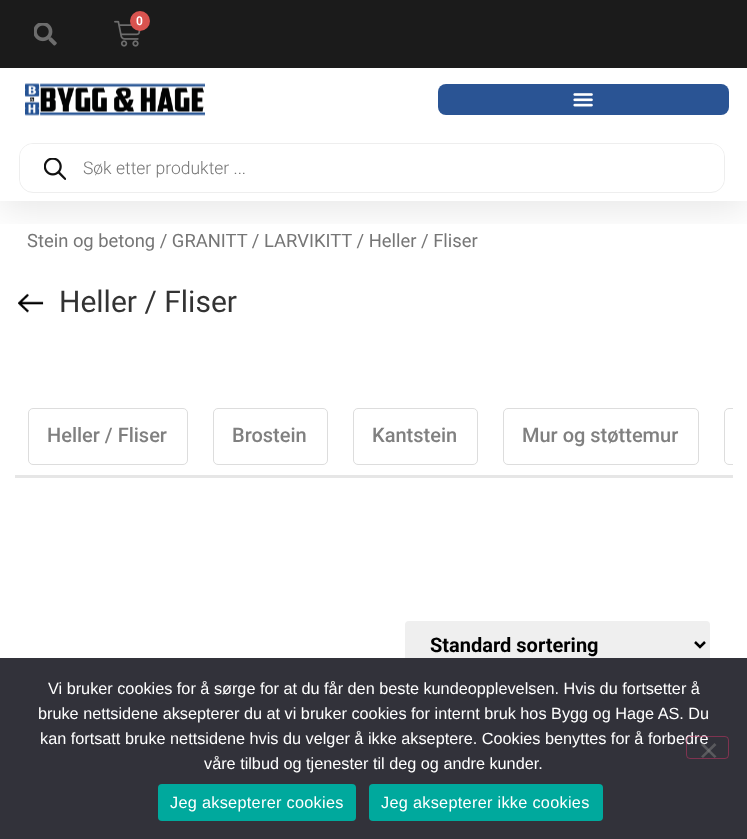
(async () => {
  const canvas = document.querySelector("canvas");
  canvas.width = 747;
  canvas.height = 839;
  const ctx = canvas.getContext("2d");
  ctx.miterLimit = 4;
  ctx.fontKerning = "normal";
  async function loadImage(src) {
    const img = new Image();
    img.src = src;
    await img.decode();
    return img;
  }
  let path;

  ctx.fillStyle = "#ffffff";
  ctx.fillRect(0, 0, 747, 839);
  ctx.save();
  ctx.beginPath();
  ctx.rect(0, 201, 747, 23);
  ctx.clip();
  ctx.fillStyle = "rgba(0, 0, 0, 0.1)";
  ctx.filter = "blur(19px)";
  ctx.beginPath();
  ctx.rect(0, 6, 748, 202);
  ctx.fill();
  ctx.filter = "none";
  ctx.restore();
  ctx.fillStyle = "#1b1b1b";
  ctx.fillRect(0, 0, 747, 68);
  ctx.drawImage(await loadImage("img/1.png"), 114, 20, 27, 27);
  ctx.fillStyle = "#d9534f";
  ctx.beginPath();
  ctx.arc(140, 21, 10, 0, Math.PI * 2);
  ctx.fill();
  ctx.drawImage(await loadImage("img/2.png"), 34, 23, 23, 23);
  ctx.drawImage(await loadImage("img/3.png"), 25, 83, 180, 33);
  ctx.fillStyle = "#2a5494";
  ctx.beginPath();
  ctx.roundRect(438, 84, 291, 31, 8);
  ctx.fill();
  ctx.drawImage(await loadImage("img/4.png"), 573, 93, 20, 14);
  ctx.beginPath();
  ctx.roundRect(19.5, 143.5, 705, 49, 13.5);
  ctx.strokeStyle = "#eeeeee";
  ctx.stroke();
  ctx.fillStyle = "#ffffff";
  ctx.beginPath();
  ctx.roundRect(20, 144, 704, 47, 13);
  ctx.fill();
  ctx.drawImage(await loadImage("img/5.png"), 44, 158, 22, 22);
  ctx.drawImage(await loadImage("img/6.png"), 18, 293, 26, 20);
  ctx.fillStyle = "#e6e6e6";
  ctx.fillRect(15, 475, 718, 3);
  ctx.beginPath();
  ctx.roundRect(28.5, 408.5, 159, 56, 4.5);
  ctx.strokeStyle = "#dddddd";
  ctx.stroke();
  ctx.beginPath();
  ctx.roundRect(213.5, 408.5, 114, 56, 4.5);
  ctx.stroke();
  ctx.beginPath();
  ctx.roundRect(353.5, 408.5, 124, 56, 4.5);
  ctx.stroke();
  ctx.beginPath();
  ctx.roundRect(503.5, 408.5, 195, 56, 4.5);
  ctx.stroke();
  ctx.save();
  ctx.beginPath();
  ctx.rect(15, 395, 718, 83);
  ctx.clip();
  ctx.beginPath();
  ctx.roundRect(724.5, 408.5, 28, 56, 4.5);
  ctx.stroke();
  ctx.restore();
  ctx.fillStyle = "#efefef";
  ctx.beginPath();
  ctx.roundRect(405, 621, 305, 47, 4);
  ctx.fill();
  path = new Path2D("M695 642L700 647L705 642");
  ctx.strokeStyle = "#000000";
  ctx.lineWidth = 2.5;
  ctx.stroke(path);
  ctx.fillStyle = "#32323a";
  ctx.fillRect(0, 658, 747, 181);
  ctx.fillStyle = "#00a99d";
  ctx.beginPath();
  ctx.roundRect(158, 784, 198, 37, 4);
  ctx.fill();
  ctx.beginPath();
  ctx.roundRect(369, 784, 234, 37, 4);
  ctx.fill();
  ctx.font = "600 12px Roboto";
  ctx.fillStyle = "#ffffff";
  ctx.fillText("0", 136, 25);
  ctx.font = "300 17.5px Roboto";
  ctx.fillStyle = "#767676";
  ctx.fillText("Søk etter produkter ...", 83, 174);
  ctx.font = "18.4px Roboto";
  ctx.fillText("Stein og betong / GRANITT / LARVIKITT / Heller / Fliser", 27, 247);
  ctx.font = "30px Roboto";
  ctx.fillStyle = "#333333";
  ctx.fillText("Heller / Fliser", 59, 312);
  ctx.font = "500 20px Roboto";
  ctx.fillStyle = "#808080";
  for (const [text, x, y] of [
    ["Heller / Fliser", 47, 442],
    ["Brostein", 232, 442],
    ["Kantstein", 372, 442],
    ["Mur og støttemur", 522, 442],
  ]) {
    ctx.fillText(text, x, y);
  }
  ctx.font = "bold 20px Roboto";
  ctx.fillStyle = "#000000";
  ctx.fillText("Standard sortering", 430, 652);
  ctx.font = "16.25px Liberation Sans";
  ctx.fillStyle = "#ffffff";
  for (const [text, x, y] of [
    ["Vi bruker cookies for å sørge for at du får den beste kundeopplevelsen. Hvis du fortsetter å", 48, 694],
    ["bruke nettsidene aksepterer du at vi bruker cookies for internt bruk hos Bygg og Hage AS. Du", 38, 719],
    ["kan fortsatt bruke nettsidene hvis du velger å ikke akseptere. Cookies benyttes for å forbedre", 40, 744],
    ["våre tilbud og tjenester til deg og andre kunder.", 204, 769],
  ]) {
    ctx.fillText(text, x, y);
  }
  ctx.beginPath();
  ctx.roundRect(686.5, 736.5, 42, 22, 3.5);
  ctx.strokeStyle = "rgba(204, 51, 102, 0.5)";
  ctx.lineWidth = 1;
  ctx.stroke();
  ctx.fillStyle = "#59595d";
  path = new Path2D("M714.5 743L716.5 745L703 758L701 756.5Z");
  ctx.fill(path);
  ctx.fillStyle = "rgba(128, 128, 128, 0.5)";
  path = new Path2D("M701 745L703 743L716.5 756.5L714.5 758Z");
  ctx.fill(path);
  ctx.letterSpacing = "0.3px";
  ctx.fillStyle = "#ffffff";
  ctx.fillText("Jeg aksepterer cookies", 170, 808);
  ctx.fillText("Jeg aksepterer ikke cookies", 381, 808);
})();
